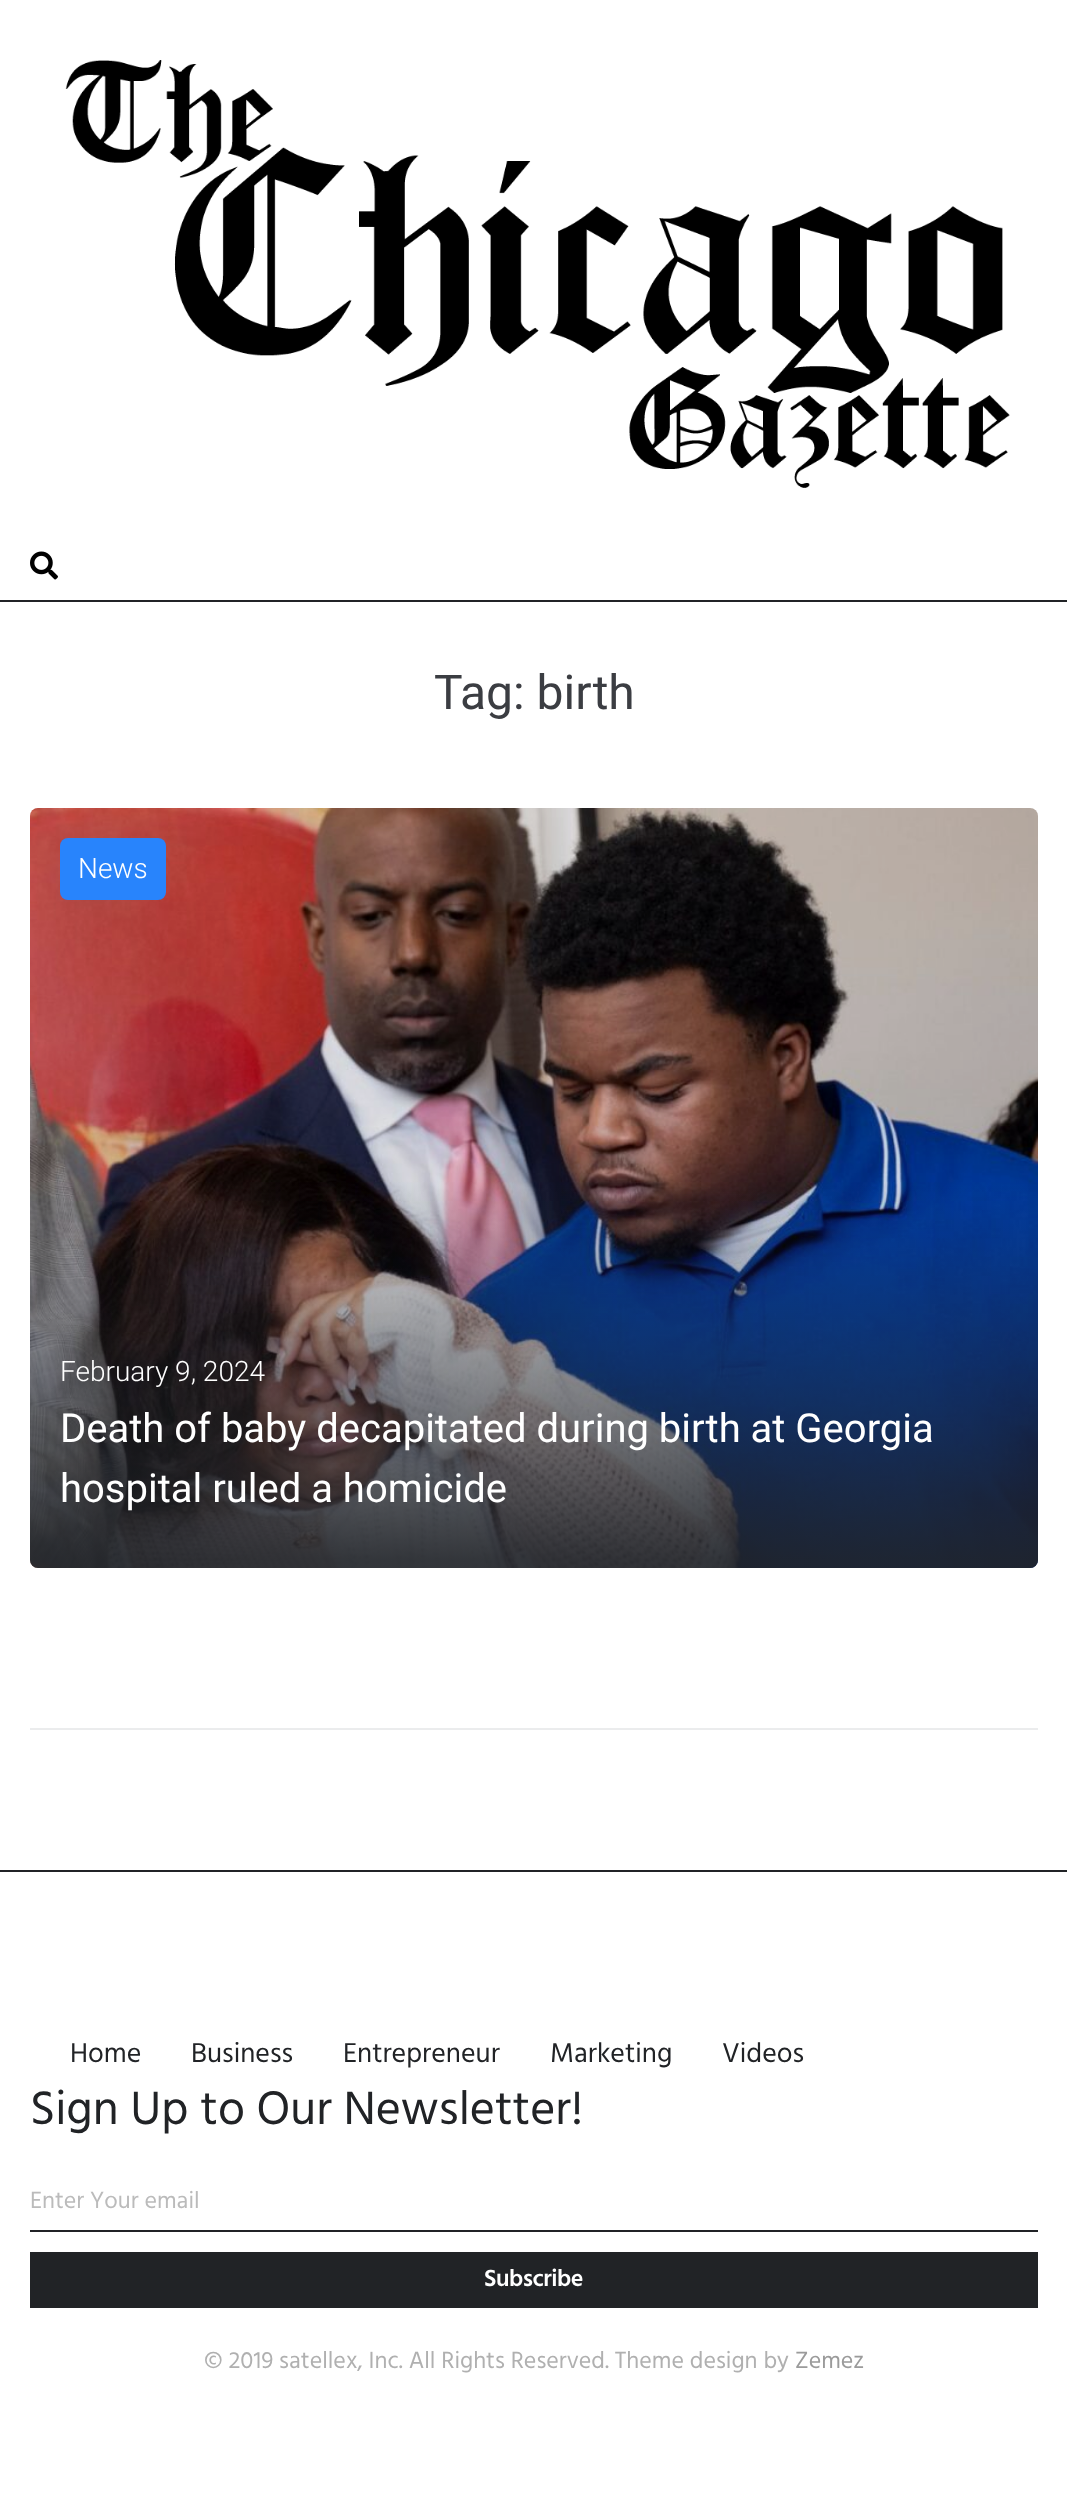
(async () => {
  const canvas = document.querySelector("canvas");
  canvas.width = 1067;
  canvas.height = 2511;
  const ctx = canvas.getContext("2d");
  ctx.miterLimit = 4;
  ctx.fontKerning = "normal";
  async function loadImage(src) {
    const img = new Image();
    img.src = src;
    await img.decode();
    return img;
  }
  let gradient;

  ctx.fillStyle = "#ffffff";
  ctx.fillRect(0, 0, 1067, 2511);
  ctx.fillStyle = "#212326";
  ctx.fillRect(0, 600, 1067, 2);
  ctx.drawImage(await loadImage("img/1.png"), 65, 60, 945, 428);
  ctx.drawImage(await loadImage("img/2.png"), 30, 551, 28, 29);
  ctx.drawImage(await loadImage("img/3.png"), 30, 808, 1008, 760);
  ctx.fillStyle = "rgba(0, 0, 0, 0.1)";
  ctx.beginPath();
  ctx.roundRect(30, 808, 1008, 760, 8);
  ctx.fill();
  ctx.fillStyle = "#2884fc";
  ctx.beginPath();
  ctx.roundRect(60, 838, 106, 62, 8);
  ctx.fill();
  gradient = ctx.createLinearGradient(534, 1112, 534, 1568);
  gradient.addColorStop(0, "rgba(122, 188, 255, 0)");
  gradient.addColorStop(0.15, "rgba(33, 36, 41, 0)");
  gradient.addColorStop(0.76, "rgba(33, 36, 41, 0.66)");
  gradient.addColorStop(0.97, "rgba(33, 36, 41, 0.89)");
  gradient.addColorStop(0.98, "rgba(33, 36, 41, 0.9)");
  ctx.fillStyle = gradient;
  ctx.beginPath();
  ctx.roundRect(30, 1112, 1008, 456, [0, 0, 8, 8]);
  ctx.fill();
  for (const [x, y, w, h, color] of [
    [30, 1728, 1008, 2, "#ebeced"],
    [0, 1870, 1067, 2, "#212326"],
    [30, 2230, 1008, 2, "#212326"],
    [30, 2252, 1008, 56, "#212326"],
  ]) {
    ctx.fillStyle = color;
    ctx.fillRect(x, y, w, h);
  }
  ctx.font = "48px Roboto";
  ctx.fillStyle = "#3b3d42";
  ctx.fillText("Tag: birth", 434, 709);
  ctx.font = "300 28px Roboto";
  ctx.fillStyle = "#ffffff";
  ctx.fillText("News", 78, 878);
  ctx.fillText("February 9, 2024", 60, 1381);
  ctx.font = "40px Roboto";
  ctx.fillText("Death of baby decapitated during birth at Georgia", 60, 1442);
  ctx.fillText("hospital ruled a homicide", 60, 1502);
  ctx.font = "28px Hind";
  ctx.fillStyle = "#212326";
  for (const [text, x, y] of [
    ["Home", 70, 2062],
    ["Business", 191, 2062],
    ["Entrepreneur", 343, 2062],
    ["Marketing", 550, 2062],
    ["Videos", 722, 2062],
  ]) {
    ctx.fillText(text, x, y);
  }
  ctx.font = "48px Hind";
  ctx.fillText("Sign Up to Our Newsletter!", 30, 2124);
  ctx.font = "24px Hind";
  ctx.fillStyle = "#bbbbbb";
  ctx.fillText("Enter Your email", 30, 2208);
  ctx.letterSpacing = "-0.5px";
  ctx.font = "600 24px Hind";
  ctx.fillStyle = "#ffffff";
  ctx.fillText("Subscribe", 484, 2286);
  ctx.letterSpacing = "0px";
  ctx.font = "24px Hind";
  ctx.fillStyle = "#b0b0b0";
  ctx.fillText("© 2019 satellex, Inc. All Rights Reserved. Theme design by", 204, 2368);
  ctx.fillStyle = "#9b9b9b";
  ctx.fillText("Zemez", 795, 2368);
})();
